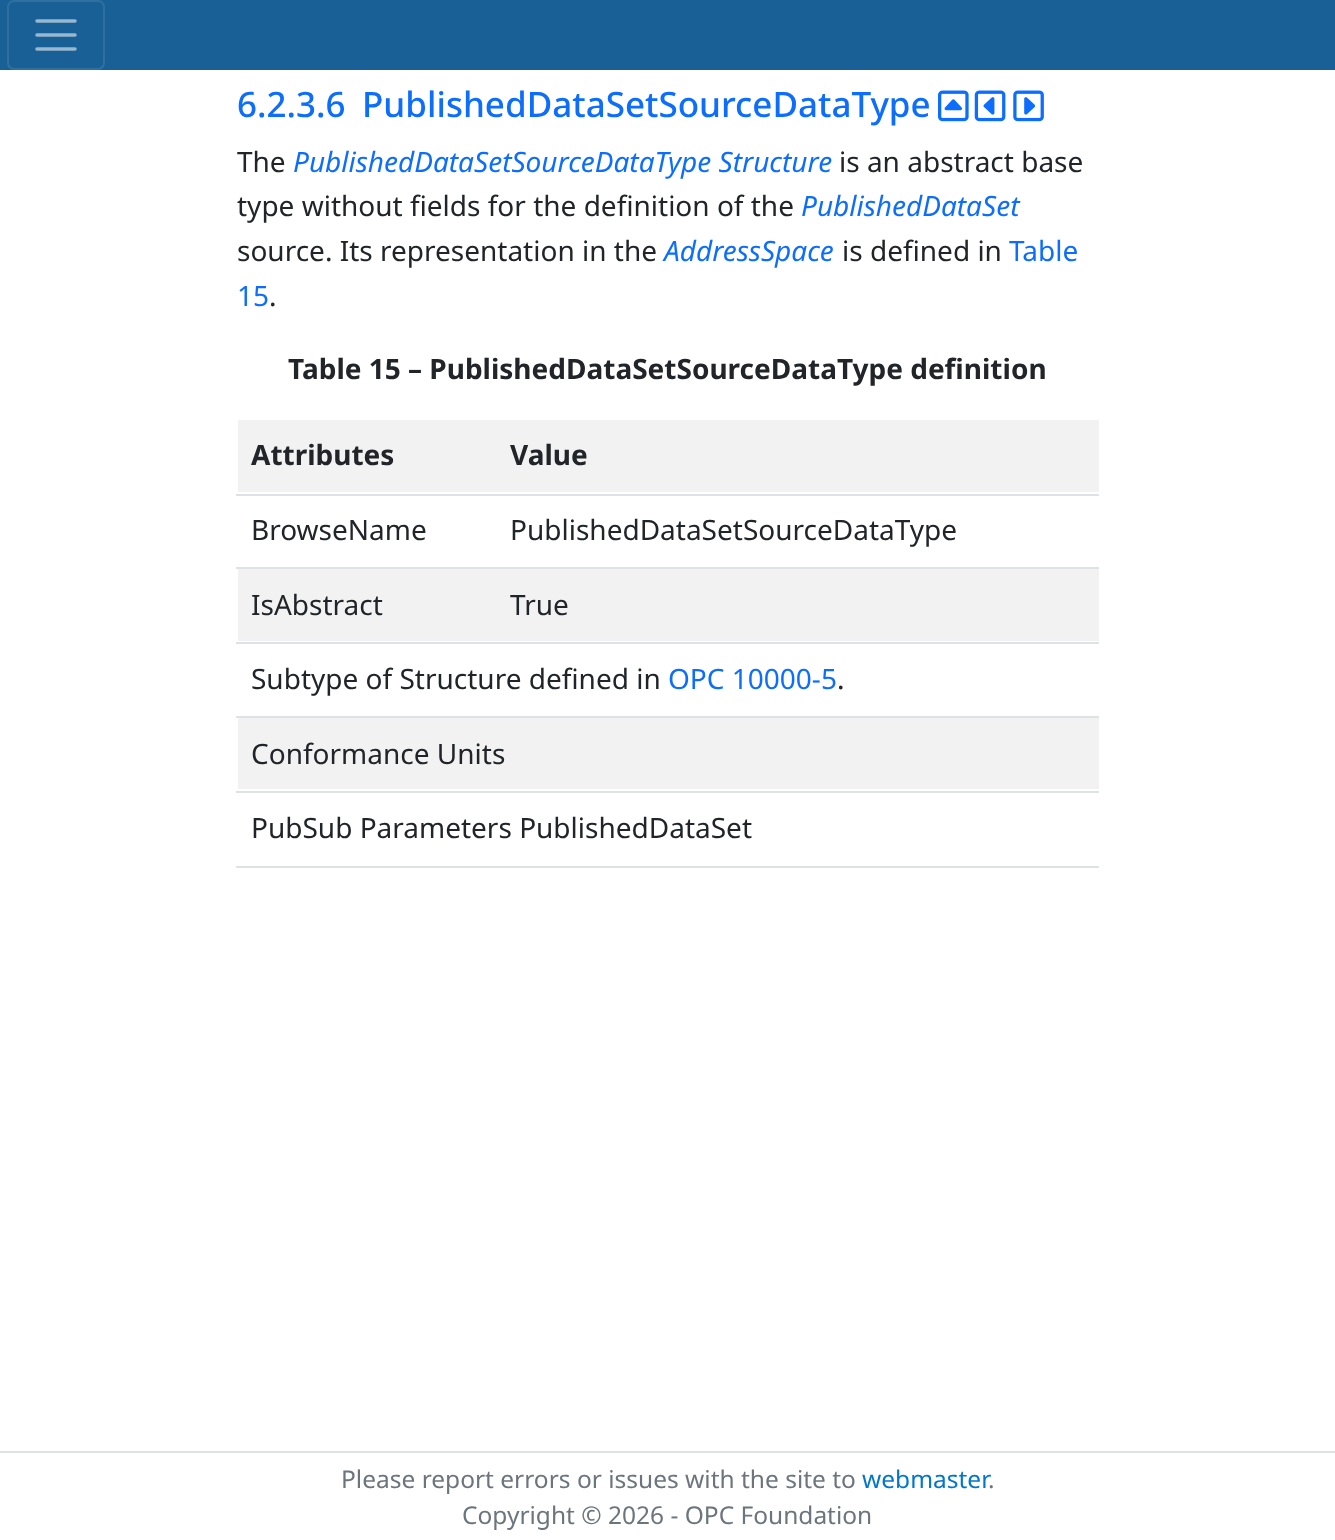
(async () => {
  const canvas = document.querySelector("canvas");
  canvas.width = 1335;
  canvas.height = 1540;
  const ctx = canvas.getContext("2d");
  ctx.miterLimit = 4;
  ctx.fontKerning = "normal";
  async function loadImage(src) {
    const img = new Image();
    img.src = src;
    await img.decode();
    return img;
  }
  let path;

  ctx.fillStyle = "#ffffff";
  ctx.fillRect(0, 0, 1335, 1540);
  ctx.fillStyle = "#196096";
  ctx.fillRect(0, 0, 1335, 70);
  ctx.beginPath();
  ctx.roundRect(8, 1, 96, 68, 6);
  ctx.strokeStyle = "#3070a1";
  ctx.lineWidth = 2;
  ctx.stroke();
  path = new Path2D("M37 21H75M37 35H75M37 49H75");
  ctx.strokeStyle = "#98b7d0";
  ctx.lineWidth = 3.5;
  ctx.lineCap = "round";
  ctx.stroke(path);
  ctx.drawImage(await loadImage("img/1.png"), 938, 90, 31, 32);
  ctx.drawImage(await loadImage("img/2.png"), 974, 90, 32, 32);
  ctx.drawImage(await loadImage("img/3.png"), 1013, 90, 31, 32);
  for (const [x, y, w, h, color] of [
    [238, 420, 861, 72, "#f2f2f2"],
    [236, 494, 863, 2, "#dee2e6"],
    [236, 567, 863, 2, "#dee2e6"],
    [238, 569, 861, 72, "#f2f2f2"],
    [236, 642, 863, 2, "#dee2e6"],
    [236, 716, 863, 2, "#dee2e6"],
    [238, 718, 861, 71, "#f2f2f2"],
    [236, 791, 863, 2, "#dee2e6"],
    [236, 866, 863, 2, "#dee2e6"],
    [0, 1451, 1335, 2, "#dee2e6"],
  ]) {
    ctx.fillStyle = color;
    ctx.fillRect(x, y, w, h);
  }
  ctx.font = "500 35px Noto Sans";
  ctx.fillStyle = "#0d6efd";
  ctx.fillText("6.2.3.6", 237, 117);
  ctx.fillText("PublishedDataSetSourceDataType", 362, 117);
  ctx.font = "28px Noto Sans";
  ctx.fillStyle = "#212529";
  ctx.fillText("The", 237, 172);
  ctx.font = "italic 28px Noto Sans";
  ctx.fillStyle = "#0d6efd";
  ctx.fillText("PublishedDataSetSourceDataType Structure", 293, 172);
  ctx.font = "28px Noto Sans";
  ctx.fillStyle = "#212529";
  ctx.fillText("is an abstract base", 839, 172);
  ctx.fillText("type without fields for the definition of the", 237, 216);
  ctx.font = "italic 28px Noto Sans";
  ctx.fillStyle = "#0d6efd";
  ctx.fillText("PublishedDataSet", 801, 216);
  ctx.font = "28px Noto Sans";
  ctx.fillStyle = "#212529";
  ctx.fillText("source. Its representation in the", 237, 261);
  ctx.font = "italic 28px Noto Sans";
  ctx.fillStyle = "#0d6efd";
  ctx.fillText("AddressSpace", 664, 261);
  ctx.font = "28px Noto Sans";
  ctx.fillStyle = "#212529";
  ctx.fillText("is defined in", 842, 261);
  ctx.fillStyle = "#0d6efd";
  ctx.fillText("Table", 1009, 261);
  ctx.fillText("15", 237, 306);
  ctx.fillStyle = "#212529";
  ctx.fillText(".", 269, 306);
  ctx.font = "bold 28px Noto Sans";
  for (const [text, x, y] of [
    ["Table 15 – PublishedDataSetSourceDataType definition", 288, 379],
    ["Attributes", 251, 465],
    ["Value", 510, 465],
  ]) {
    ctx.fillText(text, x, y);
  }
  ctx.font = "28px Noto Sans";
  for (const [text, x, y] of [
    ["BrowseName", 251, 540],
    ["PublishedDataSetSourceDataType", 510, 540],
    ["IsAbstract", 251, 615],
    ["True", 510, 615],
    ["Subtype of Structure defined in", 251, 689],
  ]) {
    ctx.fillText(text, x, y);
  }
  ctx.fillStyle = "#0d6efd";
  ctx.fillText("OPC 10000-5", 668, 689);
  ctx.fillStyle = "#212529";
  for (const [text, x, y] of [
    [".", 837, 689],
    ["Conformance Units", 251, 764],
    ["PubSub Parameters PublishedDataSet", 251, 838],
  ]) {
    ctx.fillText(text, x, y);
  }
  ctx.font = "24.5px Noto Sans";
  ctx.fillStyle = "#6c757d";
  ctx.fillText("Please report errors or issues with the site to", 341, 1488);
  ctx.fillStyle = "#0077cc";
  ctx.fillText("webmaster", 862, 1488);
  ctx.fillStyle = "#6c757d";
  ctx.fillText(".", 988, 1488);
  ctx.fillText("Copyright © 2026 - OPC Foundation", 462, 1524);
})();
